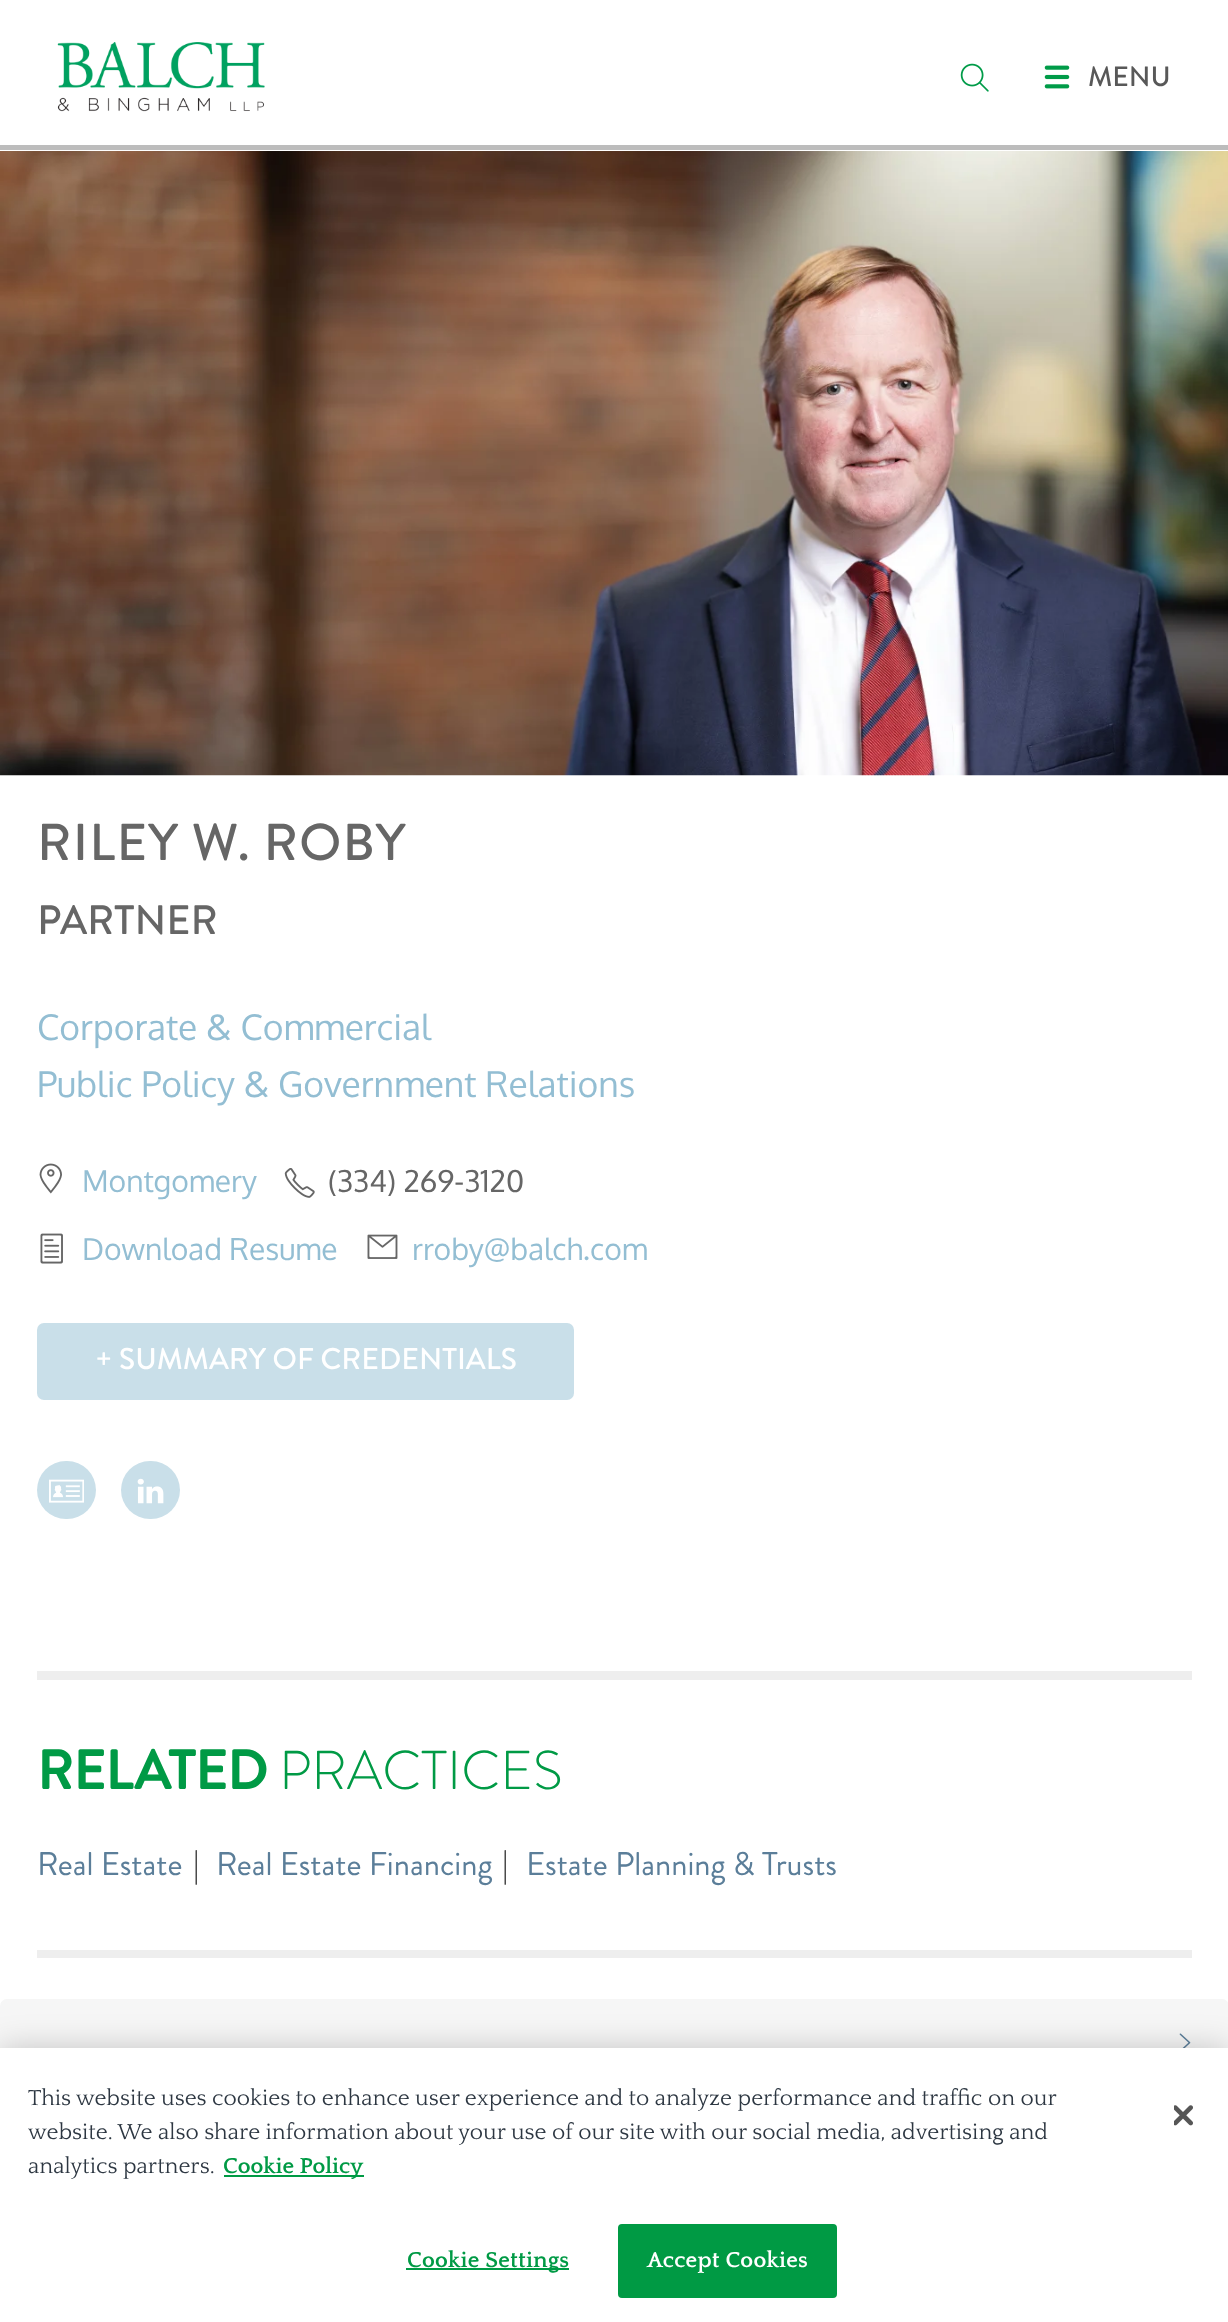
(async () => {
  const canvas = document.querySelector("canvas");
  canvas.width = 1228;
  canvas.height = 2322;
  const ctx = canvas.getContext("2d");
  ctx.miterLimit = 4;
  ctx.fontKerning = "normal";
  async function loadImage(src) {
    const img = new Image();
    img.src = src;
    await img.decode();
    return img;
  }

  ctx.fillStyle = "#ffffff";
  ctx.fillRect(0, 0, 1228, 2322);
  ctx.drawImage(await loadImage("img/1.png"), 57, 42, 208, 70);
  ctx.drawImage(await loadImage("img/2.png"), 960, 63, 29, 29);
  ctx.drawImage(await loadImage("img/3.png"), 1044, 65, 26, 24);
  ctx.fillStyle = "#bcbcbc";
  ctx.fillRect(0, 145, 1228, 5);
  ctx.drawImage(await loadImage("img/4.png"), 0, 151, 1228, 625);
  ctx.drawImage(await loadImage("img/5.png"), 39, 1163, 23, 31);
  ctx.drawImage(await loadImage("img/6.png"), 284, 1168, 31, 30);
  ctx.drawImage(await loadImage("img/7.png"), 40, 1233, 23, 31);
  ctx.drawImage(await loadImage("img/8.png"), 367, 1234, 31, 25);
  ctx.fillStyle = "#c9dfe9";
  ctx.beginPath();
  ctx.roundRect(37, 1323, 537, 77, 7);
  ctx.fill();
  ctx.beginPath();
  ctx.roundRect(37, 1461, 59, 58, 29);
  ctx.fill();
  ctx.drawImage(await loadImage("img/9.png"), 49, 1479, 35, 24);
  ctx.beginPath();
  ctx.roundRect(121, 1461, 59, 58, 29);
  ctx.fill();
  ctx.drawImage(await loadImage("img/10.png"), 137, 1478, 27, 26);
  ctx.fillStyle = "#eeeeee";
  ctx.fillRect(37, 1671, 1155, 9);
  ctx.fillRect(37, 1950, 1155, 8);
  ctx.fillStyle = "#f6f6f6";
  ctx.beginPath();
  ctx.roundRect(0, 1999, 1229, 92, 7);
  ctx.fill();
  ctx.drawImage(await loadImage("img/11.png"), 1179, 2033, 12, 15);
  ctx.fillStyle = "rgba(0, 0, 0, 0.2)";
  ctx.filter = "blur(16px)";
  ctx.beginPath();
  ctx.rect(0, 2048, 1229, 274);
  ctx.fill();
  ctx.filter = "none";
  ctx.fillStyle = "#ffffff";
  ctx.fillRect(0, 2048, 1228, 274);
  ctx.fillStyle = "#009a44";
  ctx.fillRect(224, 2175, 140, 2);
  ctx.drawImage(await loadImage("img/12.png"), 1174, 2105, 19, 21);
  ctx.fillRect(406, 2268, 163, 2);
  ctx.beginPath();
  ctx.roundRect(619, 2225, 217, 72, 3);
  ctx.fill();
  ctx.strokeStyle = "#009a44";
  ctx.lineWidth = 2;
  ctx.stroke();
  ctx.font = "500 28px Brandon Grotesque";
  ctx.fillStyle = "#585858";
  ctx.fillText("MENU", 1088, 86);
  ctx.letterSpacing = "1.25px";
  ctx.font = "500 51.75px Brandon Grotesque";
  ctx.fillStyle = "#666666";
  ctx.fillText("RILEY W. ROBY", 37, 860);
  ctx.letterSpacing = "0px";
  ctx.font = "500 41px Brandon Grotesque";
  ctx.fillText("PARTNER", 37, 934);
  ctx.font = "35.4px Oxygen";
  ctx.fillStyle = "#93bed3";
  ctx.fillText("Corporate & Commercial", 37, 1040);
  ctx.fillText("Public Policy & Government Relations", 37, 1097);
  ctx.font = "30px Oxygen";
  ctx.fillText("Montgomery", 82, 1192);
  ctx.fillStyle = "#666666";
  ctx.fillText("(334) 269-3120", 328, 1192);
  ctx.fillStyle = "#93bed3";
  ctx.fillText("Download Resume", 82, 1260);
  ctx.fillText("rroby@balch.com", 412, 1260);
  ctx.font = "500 30px Brandon Grotesque";
  ctx.fillStyle = "#ffffff";
  ctx.fillText("+ SUMMARY OF CREDENTIALS", 95, 1369);
  ctx.font = "bold 54.5px Brandon Grotesque";
  ctx.fillStyle = "#009a45";
  ctx.fillText("RELATED", 37, 1789);
  ctx.font = "300 54.5px Brandon Grotesque";
  ctx.fillText("PRACTICES", 279, 1789);
  ctx.font = "32.75px Brandon Grotesque";
  ctx.fillStyle = "#5b7e99";
  ctx.fillText("Real Estate", 37, 1875);
  ctx.fillStyle = "#464646";
  ctx.fillText("|", 193, 1875);
  ctx.fillStyle = "#5b7e99";
  ctx.fillText("Real Estate Financing", 216, 1875);
  ctx.fillStyle = "#464646";
  ctx.fillText("|", 502, 1875);
  ctx.fillStyle = "#5b7e99";
  ctx.fillText("Estate Planning & Trusts", 526, 1875);
  ctx.font = "22.75px Quattrocento";
  ctx.fillStyle = "#2d3742";
  for (const [text, x, y] of [
    ["This website uses cookies to enhance user experience and to analyze performance and traffic on our", 28, 2105],
    ["website. We also share information about your use of our site with our social media, advertising and", 28, 2139],
    ["analytics partners.", 28, 2173],
  ]) {
    ctx.fillText(text, x, y);
  }
  ctx.font = "bold 22.75px Quattrocento";
  ctx.fillStyle = "#009a45";
  ctx.fillText("Cookie Policy", 223, 2173);
  ctx.letterSpacing = "0.25px";
  ctx.fillText("Cookie Settings", 407, 2267);
  ctx.fillStyle = "#ffffff";
  ctx.fillText("Accept Cookies", 647, 2267);
})();
